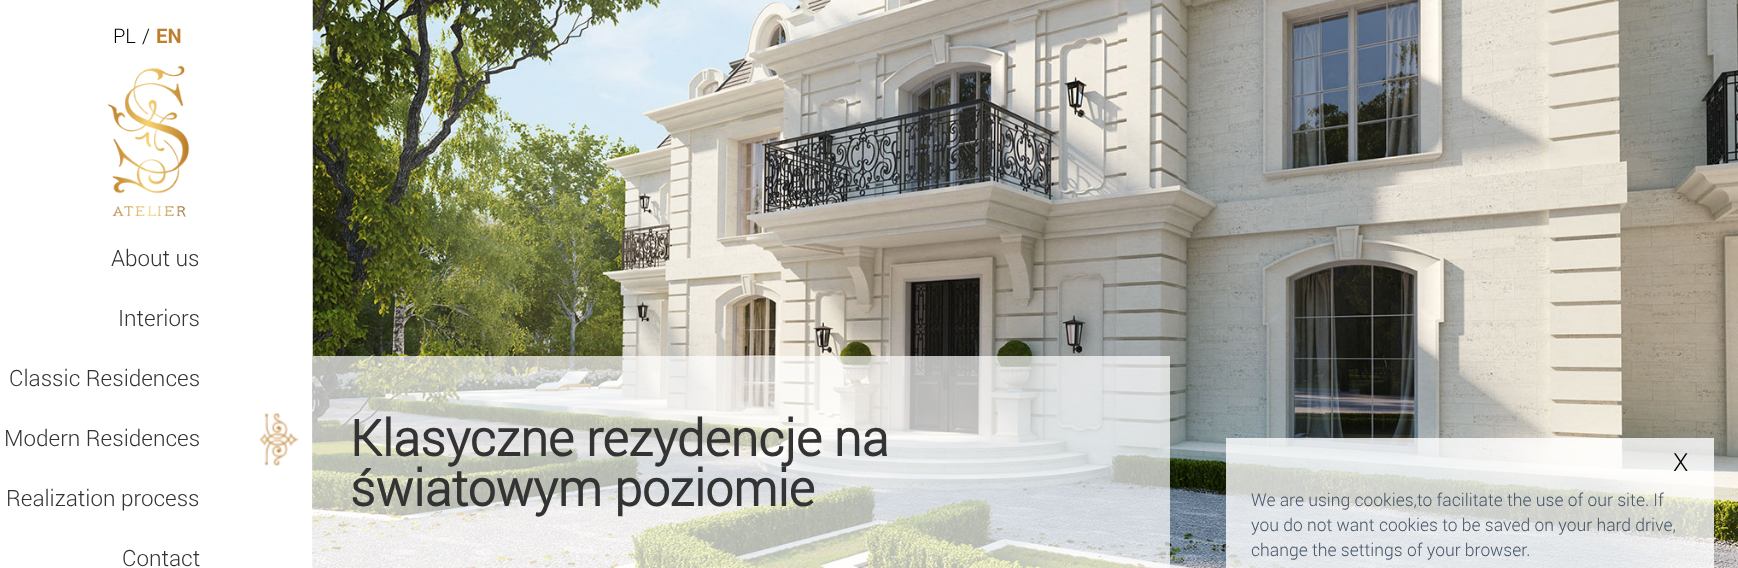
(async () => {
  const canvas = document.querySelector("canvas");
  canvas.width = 1738;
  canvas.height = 568;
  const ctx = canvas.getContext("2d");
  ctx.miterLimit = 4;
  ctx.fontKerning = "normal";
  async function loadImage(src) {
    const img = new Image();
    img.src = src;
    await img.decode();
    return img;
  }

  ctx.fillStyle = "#ffffff";
  ctx.fillRect(0, 0, 1738, 568);
  ctx.drawImage(await loadImage("img/1.png"), 108, 66, 82, 151);
  ctx.drawImage(await loadImage("img/2.png"), 259, 413, 40, 53);
  ctx.drawImage(await loadImage("img/3.png"), 312, 0, 1426, 568);
  ctx.fillStyle = "rgba(255, 255, 255, 0.7)";
  ctx.fillRect(313, 356, 857, 212);
  ctx.fillStyle = "rgba(255, 255, 255, 0.8)";
  ctx.fillRect(1226, 438, 488, 130);
  ctx.font = "300 20px Roboto";
  ctx.fillStyle = "#000000";
  ctx.fillText("PL", 113, 43);
  ctx.fillText("/", 142, 43);
  ctx.font = "bold 20px Roboto";
  ctx.fillStyle = "#bd7e2d";
  ctx.fillText("EN", 156, 43);
  ctx.font = "300 22.5px Roboto";
  ctx.fillStyle = "#333333";
  for (const [text, x, y] of [
    ["About us", 111, 266],
    ["Interiors", 118, 326],
    ["Classic Residences", 9, 386],
    ["Modern Residences", 4, 446],
    ["Realization process", 6, 506],
    ["Contact", 122, 566],
  ]) {
    ctx.fillText(text, x, y);
  }
  ctx.font = "bold 50px 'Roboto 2'";
  ctx.fillText("Klasyczne rezydencje na", 350, 456);
  ctx.fillText("światowym poziomie", 350, 506);
  ctx.font = "300 25px Roboto";
  ctx.fillStyle = "#000000";
  ctx.fillText("X", 1673, 471);
  ctx.font = "300 17.5px Roboto";
  ctx.fillStyle = "#465668";
  for (const [text, x, y] of [
    ["We are using cookies,to facilitate the use of our site. If", 1251, 506],
    ["you do not want cookies to be saved on your hard drive,", 1251, 531],
    ["change the settings of your browser.", 1251, 556],
  ]) {
    ctx.fillText(text, x, y);
  }
})();
